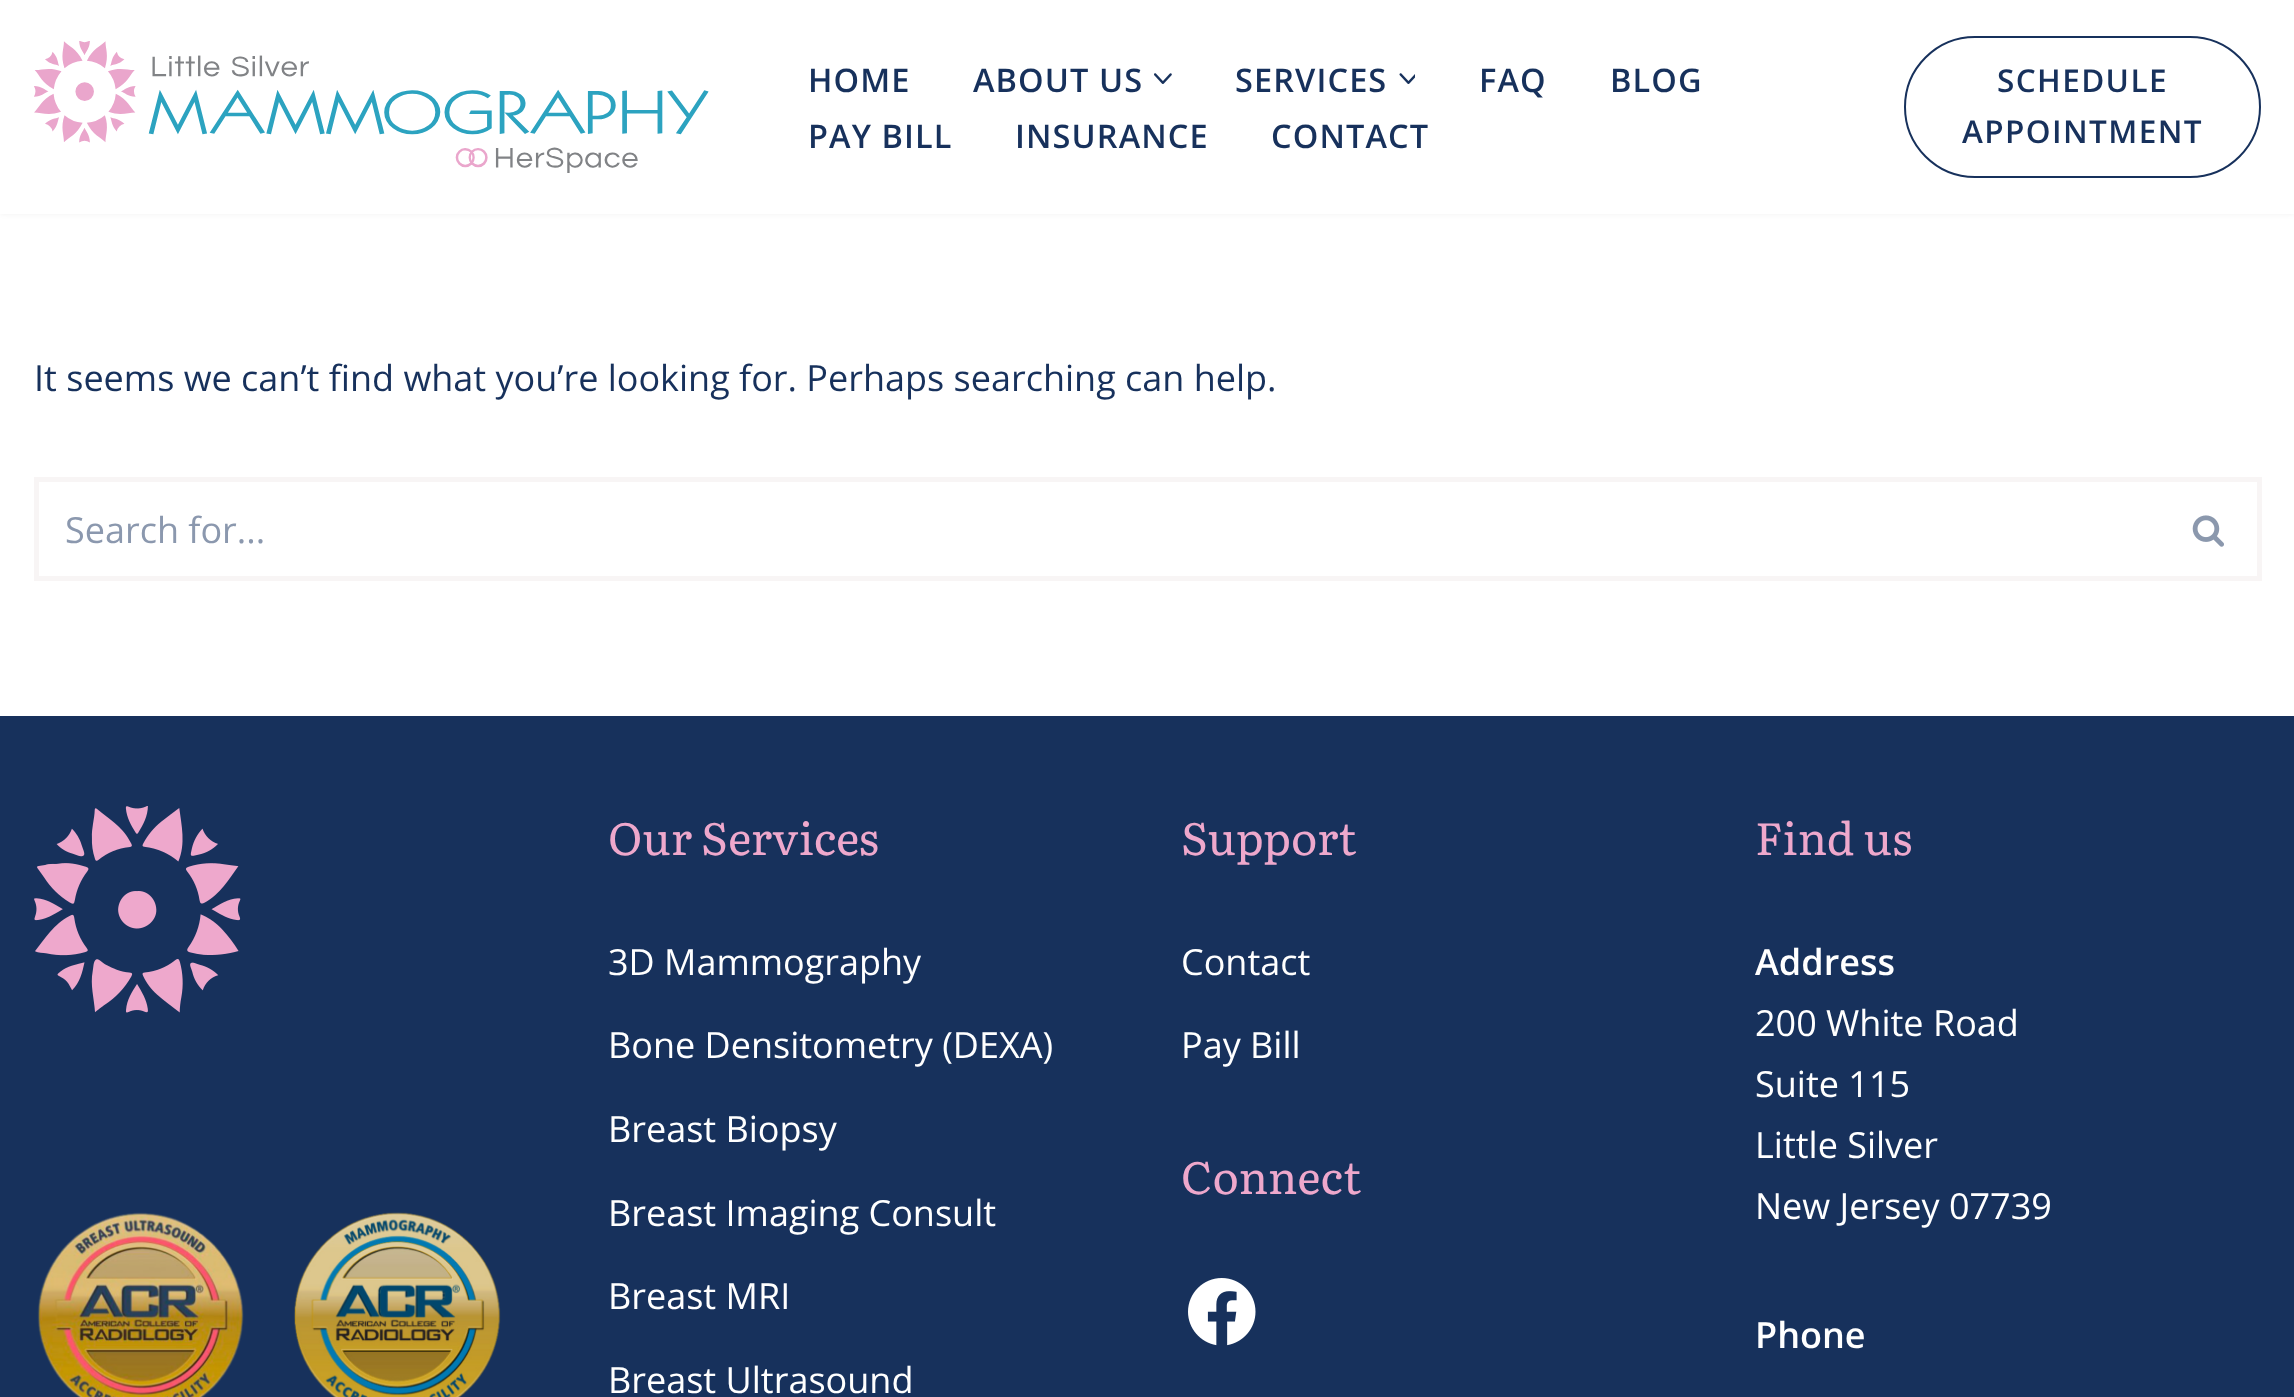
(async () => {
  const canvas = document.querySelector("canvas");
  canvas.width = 2294;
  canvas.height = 1397;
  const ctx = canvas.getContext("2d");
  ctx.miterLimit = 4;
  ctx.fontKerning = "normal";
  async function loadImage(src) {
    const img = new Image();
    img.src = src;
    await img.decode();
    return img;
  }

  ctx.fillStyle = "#ffffff";
  ctx.fillRect(0, 0, 2294, 1397);
  ctx.fillStyle = "rgba(0, 0, 0, 0.1)";
  ctx.filter = "blur(3.5px)";
  ctx.beginPath();
  ctx.rect(0, -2, 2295, 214);
  ctx.fill();
  ctx.filter = "none";
  ctx.fillStyle = "#ffffff";
  ctx.fillRect(0, 0, 2294, 214);
  ctx.drawImage(await loadImage("img/1.png"), 34, 41, 675, 132);
  ctx.drawImage(await loadImage("img/2.png"), 1154, 73, 18, 11);
  ctx.drawImage(await loadImage("img/3.png"), 1399, 73, 16, 11);
  ctx.beginPath();
  ctx.roundRect(1905, 37, 355, 140, 70);
  ctx.strokeStyle = "#17315c";
  ctx.lineWidth = 2;
  ctx.stroke();
  for (const [x, y, w, h, color] of [
    [34, 477, 2227, 5, "#f8f5f5"],
    [34, 576, 2126, 5, "#f8f5f5"],
    [34, 477, 5, 104, "#f8f5f5"],
    [2257, 477, 5, 104, "#f8f5f5"],
    [2160, 576, 101, 5, "#f8f5f5"],
  ]) {
    ctx.fillStyle = color;
    ctx.fillRect(x, y, w, h);
  }
  ctx.drawImage(await loadImage("img/4.png"), 2192, 515, 32, 32);
  ctx.fillStyle = "#17315c";
  ctx.fillRect(0, 716, 2294, 681);
  ctx.drawImage(await loadImage("img/5.png"), 34, 806, 207, 207);
  ctx.drawImage(await loadImage("img/6.png"), 37, 1212, 464, 185);
  ctx.drawImage(await loadImage("img/7.png"), 1188, 1278, 68, 68);
  ctx.letterSpacing = "1.1px";
  ctx.font = "600 32.5px Open Sans";
  for (const [text, x, y] of [
    ["HOME", 808, 92],
    ["ABOUT US", 973, 92],
    ["SERVICES", 1235, 92],
    ["FAQ", 1479, 92],
    ["BLOG", 1610, 92],
    ["PAY BILL", 808, 148],
    ["INSURANCE", 1015, 148],
    ["CONTACT", 1271, 148],
  ]) {
    ctx.fillText(text, x, y);
  }
  ctx.letterSpacing = "1.4px";
  ctx.font = "600 31.5px Open Sans";
  ctx.fillText("SCHEDULE", 1997, 92);
  ctx.fillText("APPOINTMENT", 1962, 143);
  ctx.letterSpacing = "0px";
  ctx.font = "36px Open Sans";
  ctx.fillText("It seems we can’t find what you’re looking for. Perhaps searching can help.", 34, 391);
  ctx.fillStyle = "#8b98ae";
  ctx.fillText("Search for...", 65, 543);
  ctx.font = "45px Literata";
  ctx.fillStyle = "#eea8cc";
  ctx.fillText("Our Services", 608, 855);
  ctx.font = "36px Open Sans";
  ctx.fillStyle = "#ffffff";
  for (const [text, x, y] of [
    ["3D Mammography", 608, 975],
    ["Bone Densitometry (DEXA)", 608, 1058],
    ["Breast Biopsy", 608, 1142],
    ["Breast Imaging Consult", 608, 1226],
    ["Breast MRI", 608, 1309],
    ["Breast Ultrasound", 608, 1393],
  ]) {
    ctx.fillText(text, x, y);
  }
  ctx.font = "45px Literata";
  ctx.fillStyle = "#eea8cc";
  ctx.fillText("Support", 1181, 855);
  ctx.font = "36px Open Sans";
  ctx.fillStyle = "#ffffff";
  ctx.fillText("Contact", 1181, 975);
  ctx.fillText("Pay Bill", 1181, 1058);
  ctx.font = "45px Literata";
  ctx.fillStyle = "#eea8cc";
  ctx.fillText("Connect", 1181, 1194);
  ctx.fillText("Find us", 1755, 855);
  ctx.font = "600 36px Open Sans";
  ctx.fillStyle = "#ffffff";
  ctx.fillText("Address", 1755, 975);
  ctx.font = "36px Open Sans";
  for (const [text, x, y] of [
    ["200 White Road", 1755, 1036],
    ["Suite 115", 1755, 1097],
    ["Little Silver", 1755, 1158],
    ["New Jersey 07739", 1755, 1219],
  ]) {
    ctx.fillText(text, x, y);
  }
  ctx.font = "600 36px Open Sans";
  ctx.fillText("Phone", 1755, 1348);
})();
